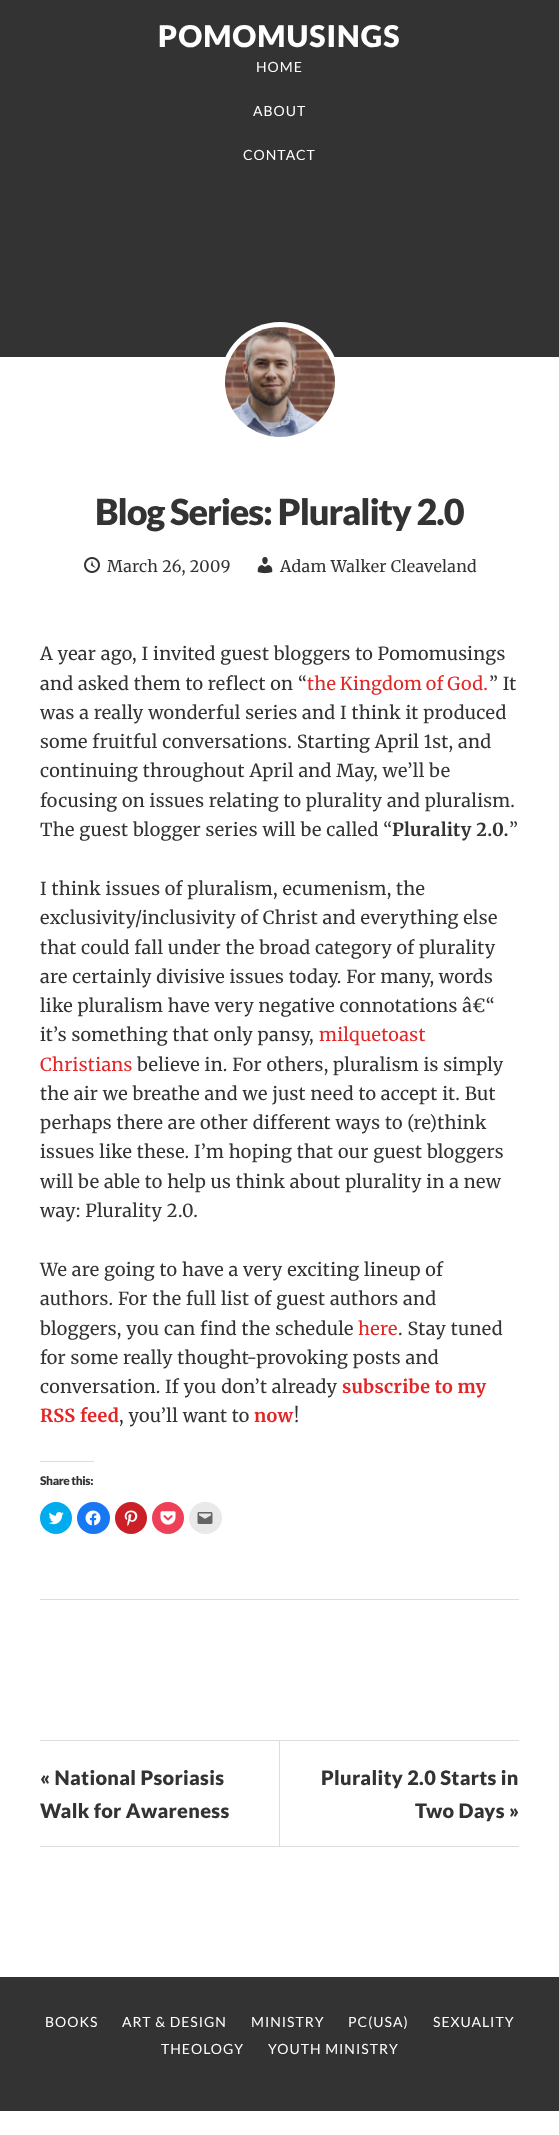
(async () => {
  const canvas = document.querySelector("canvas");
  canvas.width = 559;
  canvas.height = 2135;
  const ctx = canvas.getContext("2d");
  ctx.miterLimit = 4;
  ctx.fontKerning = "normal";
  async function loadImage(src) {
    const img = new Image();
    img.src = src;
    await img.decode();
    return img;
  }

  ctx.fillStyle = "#ffffff";
  ctx.fillRect(0, 0, 559, 2135);
  ctx.fillStyle = "#333333";
  ctx.fillRect(0, 0, 559, 357);
  ctx.fillStyle = "#ffffff";
  ctx.beginPath();
  ctx.arc(280, 382, 60, 0, Math.PI * 2);
  ctx.fill();
  ctx.drawImage(await loadImage("img/1.png"), 225, 327, 110, 110);
  ctx.drawImage(await loadImage("img/2.png"), 84, 557, 16, 16);
  ctx.drawImage(await loadImage("img/3.png"), 257, 557, 16, 17);
  ctx.fillStyle = "#dcdcde";
  ctx.fillRect(40, 1461, 54, 1);
  ctx.fillStyle = "#00acee";
  ctx.beginPath();
  ctx.arc(56, 1518, 16, 0, Math.PI * 2);
  ctx.fill();
  ctx.drawImage(await loadImage("img/4.png"), 48, 1512, 16, 13);
  ctx.fillStyle = "#1877f2";
  ctx.beginPath();
  ctx.roundRect(77, 1502, 33, 32, 16);
  ctx.fill();
  ctx.drawImage(await loadImage("img/5.png"), 85, 1510, 16, 16);
  ctx.fillStyle = "#ca1f27";
  ctx.beginPath();
  ctx.arc(131, 1518, 16, 0, Math.PI * 2);
  ctx.fill();
  ctx.drawImage(await loadImage("img/6.png"), 124, 1510, 14, 16);
  ctx.fillStyle = "#ee4056";
  ctx.beginPath();
  ctx.arc(168, 1518, 16, 0, Math.PI * 2);
  ctx.fill();
  ctx.drawImage(await loadImage("img/7.png"), 160, 1511, 16, 14);
  ctx.fillStyle = "#e9e9e9";
  ctx.beginPath();
  ctx.roundRect(189, 1502, 33, 32, 16);
  ctx.fill();
  ctx.drawImage(await loadImage("img/8.png"), 197, 1512, 16, 12);
  for (const [x, y, w, h, color] of [
    [40, 1599, 479, 1, "#dddddd"],
    [40, 1740, 479, 1, "#dddddd"],
    [40, 1846, 479, 1, "#dddddd"],
    [279, 1741, 1, 105, "#dddddd"],
    [0, 1977, 559, 134, "#333333"],
  ]) {
    ctx.fillStyle = color;
    ctx.fillRect(x, y, w, h);
  }
  ctx.letterSpacing = "1px";
  ctx.font = "900 30px Lato";
  ctx.fillStyle = "#ffffff";
  ctx.fillText("POMOMUSINGS", 158, 47);
  ctx.font = "14px Lato";
  for (const [text, x, y] of [
    ["HOME", 256, 72],
    ["ABOUT", 253, 116],
    ["CONTACT", 243, 160],
  ]) {
    ctx.fillText(text, x, y);
  }
  ctx.letterSpacing = "-1.1px";
  ctx.font = "900 36px Lato";
  ctx.fillStyle = "#333333";
  ctx.fillText("Blog Series: Plurality 2.0", 95, 525);
  ctx.letterSpacing = "0.3px";
  ctx.font = "16px Merriweather";
  ctx.fillText("March 26, 2009", 107, 572);
  ctx.fillText("Adam Walker Cleaveland", 280, 572);
  ctx.font = "18px Merriweather";
  ctx.fillText("A year ago, I invited guest bloggers to Pomomusings", 40, 660);
  ctx.fillText("and asked them to reflect on “", 40, 690);
  ctx.wordSpacing = "-1px";
  ctx.fillStyle = "#e12727";
  ctx.fillText("the Kingdom of God.", 307, 690);
  ctx.wordSpacing = "0px";
  ctx.fillStyle = "#333333";
  for (const [text, x, y] of [
    ["” It", 489, 690],
    ["was a really wonderful series and I think it produced", 40, 719],
    ["some fruitful conversations. Starting April 1st, and", 40, 748],
    ["continuing throughout April and May, we’ll be", 40, 777],
    ["focusing on issues relating to plurality and pluralism.", 40, 807],
    ["The guest blogger series will be called “", 40, 836],
  ]) {
    ctx.fillText(text, x, y);
  }
  ctx.font = "bold 18px Merriweather";
  ctx.fillText("Plurality 2.0.", 392, 836);
  ctx.font = "18px Merriweather";
  for (const [text, x, y] of [
    ["”", 509, 836],
    ["I think issues of pluralism, ecumenism, the", 40, 895],
    ["exclusivity/inclusivity of Christ and everything else", 40, 924],
    ["that could fall under the broad category of plurality", 40, 954],
    ["are certainly divisive issues today. For many, words", 40, 983],
    ["like pluralism have very negative connotations â€“", 40, 1012],
    ["it’s something that only pansy,", 40, 1041],
  ]) {
    ctx.fillText(text, x, y);
  }
  ctx.fillStyle = "#e12727";
  ctx.fillText("milquetoast", 319, 1041);
  ctx.fillText("Christians", 40, 1071);
  ctx.fillStyle = "#333333";
  for (const [text, x, y] of [
    ["believe in. For others, pluralism is simply", 137, 1071],
    ["the air we breathe and we just need to accept it. But", 40, 1100],
    ["perhaps there are other different ways to (re)think", 40, 1129],
    ["issues like these. I’m hoping that our guest bloggers", 40, 1158],
    ["will be able to help us think about plurality in a new", 40, 1188],
    ["way: Plurality 2.0.", 40, 1217],
    ["We are going to have a very exciting lineup of", 40, 1276],
    ["authors. For the full list of guest authors and", 40, 1305],
    ["bloggers, you can find the schedule", 40, 1335],
  ]) {
    ctx.fillText(text, x, y);
  }
  ctx.fillStyle = "#e12727";
  ctx.fillText("here", 358, 1335);
  ctx.fillStyle = "#333333";
  for (const [text, x, y] of [
    [". Stay tuned", 398, 1335],
    ["for some really thought-provoking posts and", 40, 1364],
    ["conversation. If you don’t already", 40, 1393],
  ]) {
    ctx.fillText(text, x, y);
  }
  ctx.font = "bold 18px Merriweather";
  ctx.fillStyle = "#e12727";
  ctx.fillText("subscribe to my", 342, 1393);
  ctx.fillText("RSS feed", 40, 1422);
  ctx.font = "18px Merriweather";
  ctx.fillStyle = "#333333";
  ctx.fillText(", you’ll want to", 119, 1422);
  ctx.font = "bold 18px Merriweather";
  ctx.fillStyle = "#e12727";
  ctx.fillText("now", 254, 1422);
  ctx.font = "18px Merriweather";
  ctx.fillStyle = "#333333";
  ctx.fillText("!", 294, 1422);
  ctx.letterSpacing = "-0.4px";
  ctx.font = "900 12px Lato";
  ctx.fillText("Share this:", 40, 1485);
  ctx.letterSpacing = "0.3px";
  ctx.font = "900 20px Lato";
  for (const [text, x, y] of [
    ["« National Psoriasis", 40, 1785],
    ["Walk for Awareness", 40, 1818],
    ["Plurality 2.0 Starts in", 321, 1785],
    ["Two Days »", 415, 1818],
  ]) {
    ctx.fillText(text, x, y);
  }
  ctx.letterSpacing = "1px";
  ctx.font = "14px Lato";
  ctx.fillStyle = "#ffffff";
  for (const [text, x, y] of [
    ["BOOKS", 45, 2027],
    ["ART & DESIGN", 122, 2027],
    ["MINISTRY", 251, 2027],
    ["PC(USA)", 348, 2027],
    ["SEXUALITY", 433, 2027],
    ["THEOLOGY", 161, 2054],
    ["YOUTH MINISTRY", 268, 2054],
  ]) {
    ctx.fillText(text, x, y);
  }
})();
